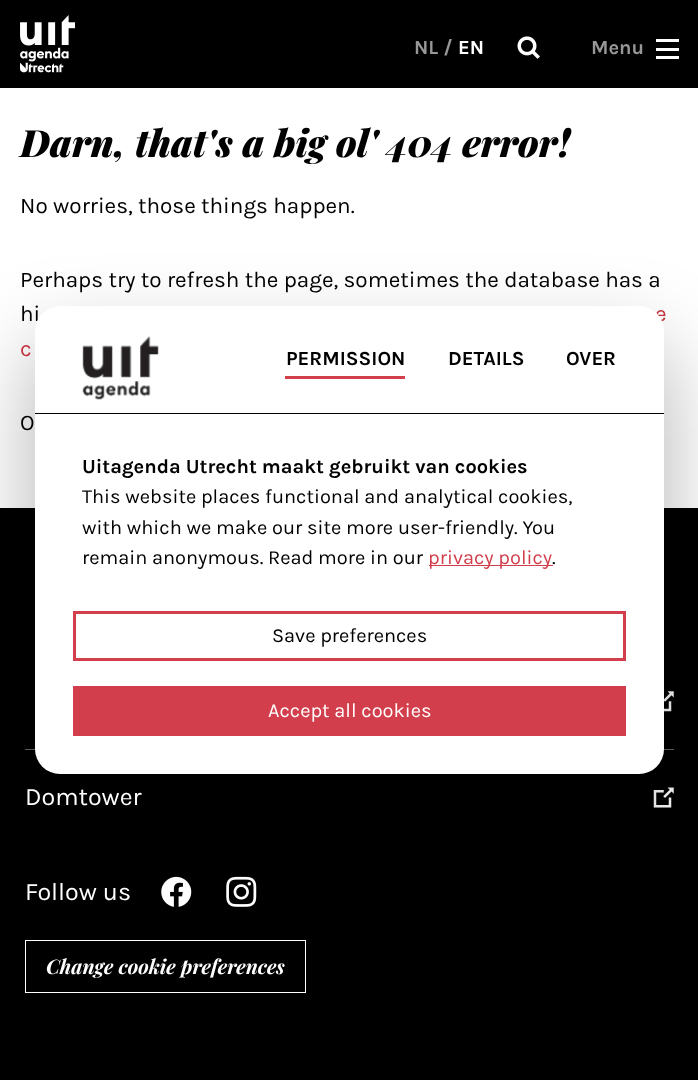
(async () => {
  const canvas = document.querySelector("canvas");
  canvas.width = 698;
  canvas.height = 1080;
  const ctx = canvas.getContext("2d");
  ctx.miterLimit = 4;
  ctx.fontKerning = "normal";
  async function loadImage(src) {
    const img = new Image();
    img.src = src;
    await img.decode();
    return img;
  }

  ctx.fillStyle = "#ffffff";
  ctx.fillRect(0, 0, 698, 1080);
  ctx.fillStyle = "#000000";
  ctx.fillRect(0, 0, 698, 88);
  ctx.drawImage(await loadImage("img/1.png"), 20, 15, 55, 58);
  ctx.drawImage(await loadImage("img/2.png"), 517, 36, 23, 23);
  for (const [x, y, w, h, color] of [
    [656, 39, 23, 3, "#ffffff"],
    [656, 48, 23, 3, "#ffffff"],
    [656, 56, 23, 3, "#ffffff"],
    [0, 508, 698, 572, "#000000"],
    [25, 749, 649, 1, "#666666"],
  ]) {
    ctx.fillStyle = color;
    ctx.fillRect(x, y, w, h);
  }
  ctx.drawImage(await loadImage("img/4.png"), 664, 691, 10, 21);
  ctx.drawImage(await loadImage("img/5.png"), 653, 787, 21, 21);
  ctx.drawImage(await loadImage("img/6.png"), 161, 876, 31, 31);
  ctx.drawImage(await loadImage("img/7.png"), 226, 876, 31, 31);
  ctx.strokeStyle = "#ffffff";
  ctx.strokeRect(25.5, 940.5, 280, 52);
  ctx.fillStyle = "rgba(0, 0, 0, 0.3)";
  ctx.filter = "blur(42.5px)";
  ctx.beginPath();
  ctx.roundRect(35, 346, 629, 468, 25);
  ctx.fill();
  ctx.filter = "none";
  ctx.font = "bold 20px Karla";
  ctx.fillStyle = "#979797";
  ctx.fillText("NL /", 414, 54);
  ctx.fillStyle = "#ffffff";
  ctx.fillText("EN", 458, 54);
  ctx.fillStyle = "#979797";
  ctx.fillText("Menu", 591, 54);
  ctx.font = "italic 900 37.5px Playfair Display";
  ctx.fillStyle = "#000000";
  ctx.fillText("Darn, that's a big ol' 404 error!", 20, 157);
  ctx.font = "22.5px Karla";
  for (const [text, x, y] of [
    ["No worries, those things happen.", 20, 213],
    ["Perhaps try to refresh the page, sometimes the database has a", 20, 287],
    ["hi", 20, 321],
  ]) {
    ctx.fillText(text, x, y);
  }
  ctx.fillStyle = "#c3303d";
  ctx.fillText("e", 655, 321);
  ctx.fillText("c", 20, 356);
  ctx.fillStyle = "#000000";
  ctx.fillText("O", 20, 430);
  ctx.fillStyle = "#ffffff";
  ctx.beginPath();
  ctx.roundRect(35, 306, 629, 468, 25);
  ctx.fill();
  ctx.fillStyle = "#000000";
  ctx.fillRect(35, 413, 629, 1);
  ctx.drawImage(await loadImage("img/3.png"), 82, 336, 77, 64);
  ctx.fillStyle = "#d23e4b";
  ctx.fillRect(285, 376, 120, 3);
  ctx.font = "bold 20px Karla";
  ctx.fillStyle = "#000000";
  for (const [text, x, y] of [
    ["PERMISSION", 286, 365],
    ["DETAILS", 448, 365],
    ["OVER", 566, 365],
    ["Uitagenda Utrecht maakt gebruikt van cookies", 82, 473],
  ]) {
    ctx.fillText(text, x, y);
  }
  ctx.font = "20px Karla";
  for (const [text, x, y] of [
    ["This website places functional and analytical cookies,", 82, 503],
    ["with which we make our site more user-friendly. You", 82, 534],
    ["remain anonymous. Read more in our", 82, 564],
  ]) {
    ctx.fillText(text, x, y);
  }
  ctx.fillStyle = "#d23e4b";
  ctx.fillRect(429, 565, 124, 1);
  ctx.fillText("privacy policy", 428, 564);
  ctx.fillStyle = "#000000";
  ctx.fillText(".", 552, 564);
  ctx.strokeStyle = "#d23e4b";
  ctx.lineWidth = 3;
  ctx.strokeRect(74.5, 612.5, 550, 47);
  ctx.fillText("Save preferences", 272, 642);
  ctx.fillStyle = "#d23e4b";
  ctx.fillRect(73, 686, 553, 50);
  ctx.fillStyle = "#ffffff";
  ctx.fillText("Accept all cookies", 268, 717);
  ctx.font = "25px Karla";
  ctx.fillText("Domtower", 25, 805);
  ctx.fillText("Follow us", 25, 900);
  ctx.font = "italic bold 20px Playfair Display";
  ctx.fillText("Change cookie preferences", 46, 974);
})();
